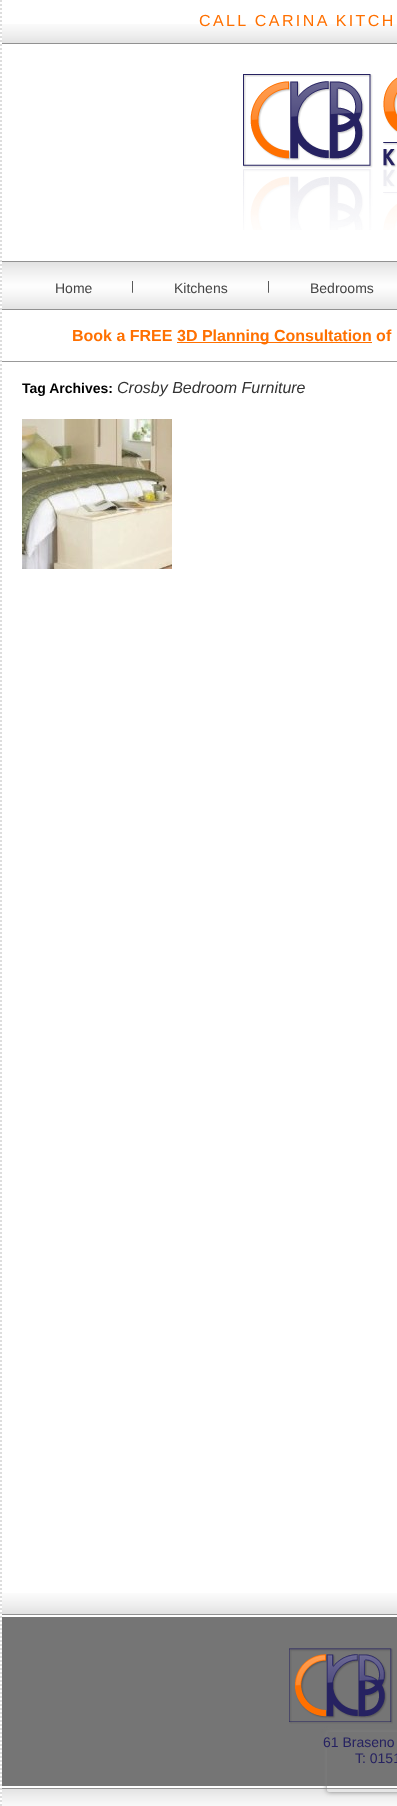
(async () => {
  const canvas = document.querySelector("canvas");
  canvas.width = 397;
  canvas.height = 1806;
  const ctx = canvas.getContext("2d");
  ctx.miterLimit = 4;
  ctx.fontKerning = "normal";
  async function loadImage(src) {
    const img = new Image();
    img.src = src;
    await img.decode();
    return img;
  }
  let path;

  ctx.fillStyle = "#ffffff";
  ctx.fillRect(0, 0, 397, 1806);
  path = new Path2D("M1 0V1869");
  ctx.strokeStyle = "#dddddd";
  ctx.lineWidth = 2;
  ctx.setLineDash([2, 2]);
  ctx.stroke(path);
  ctx.drawImage(await loadImage("img/1.png"), 2, 24, 395, 20);
  ctx.drawImage(await loadImage("img/2.png"), 243, 74, 154, 156);
  ctx.drawImage(await loadImage("img/3.png"), 2, 261, 395, 49);
  ctx.drawImage(await loadImage("img/4.png"), 132, 281, 1, 12);
  ctx.drawImage(await loadImage("img/4.png"), 268, 281, 1, 12);
  ctx.fillStyle = "#999999";
  ctx.fillRect(2, 361, 395, 1);
  ctx.fillStyle = "#ff7000";
  ctx.fillRect(177, 342, 195, 1);
  ctx.drawImage(await loadImage("img/5.png"), 22, 419, 150, 150);
  ctx.drawImage(await loadImage("img/6.png"), 2, 1593, 395, 213);
  ctx.drawImage(await loadImage("img/7.png"), 289, 1648, 104, 76);
  ctx.save();
  path = new Path2D("M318 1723H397V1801H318ZM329 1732H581C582 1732 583 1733 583 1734V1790C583 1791 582 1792 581 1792H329C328 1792 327 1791 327 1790V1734C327 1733 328 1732 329 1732Z");
  ctx.clip(path, "evenodd");
  ctx.fillStyle = "#808080";
  ctx.filter = "blur(2.5px)";
  ctx.beginPath();
  ctx.roundRect(327, 1732, 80, 60, 2);
  ctx.fill();
  ctx.filter = "none";
  ctx.restore();
  ctx.letterSpacing = "2.4px";
  ctx.font = "16px Liberation Sans";
  ctx.fillText("CALL CARINA KITCH", 199, 26);
  ctx.letterSpacing = "0px";
  ctx.font = "14px Liberation Sans";
  ctx.fillStyle = "#444444";
  for (const [text, x, y] of [
    ["Home", 55, 293],
    ["Kitchens", 174, 293],
    ["Bedrooms", 310, 293],
  ]) {
    ctx.fillText(text, x, y);
  }
  ctx.font = "bold 16px Liberation Sans";
  ctx.fillStyle = "#ff7000";
  ctx.fillText("Book a FREE", 72, 341);
  ctx.fillText("3D Planning Consultation of", 177, 341);
  ctx.font = "bold 14px Liberation Sans";
  ctx.fillStyle = "#000000";
  ctx.fillText("Tag Archives:", 22, 393);
  ctx.font = "italic 16px Liberation Sans";
  ctx.fillStyle = "#333333";
  ctx.fillText("Crosby Bedroom Furniture", 117, 393);
  ctx.font = "14px Liberation Sans";
  ctx.fillStyle = "#262261";
  ctx.fillText("61 Braseno", 323, 1747);
  ctx.fillText("T: 0151", 355, 1763);
})();
